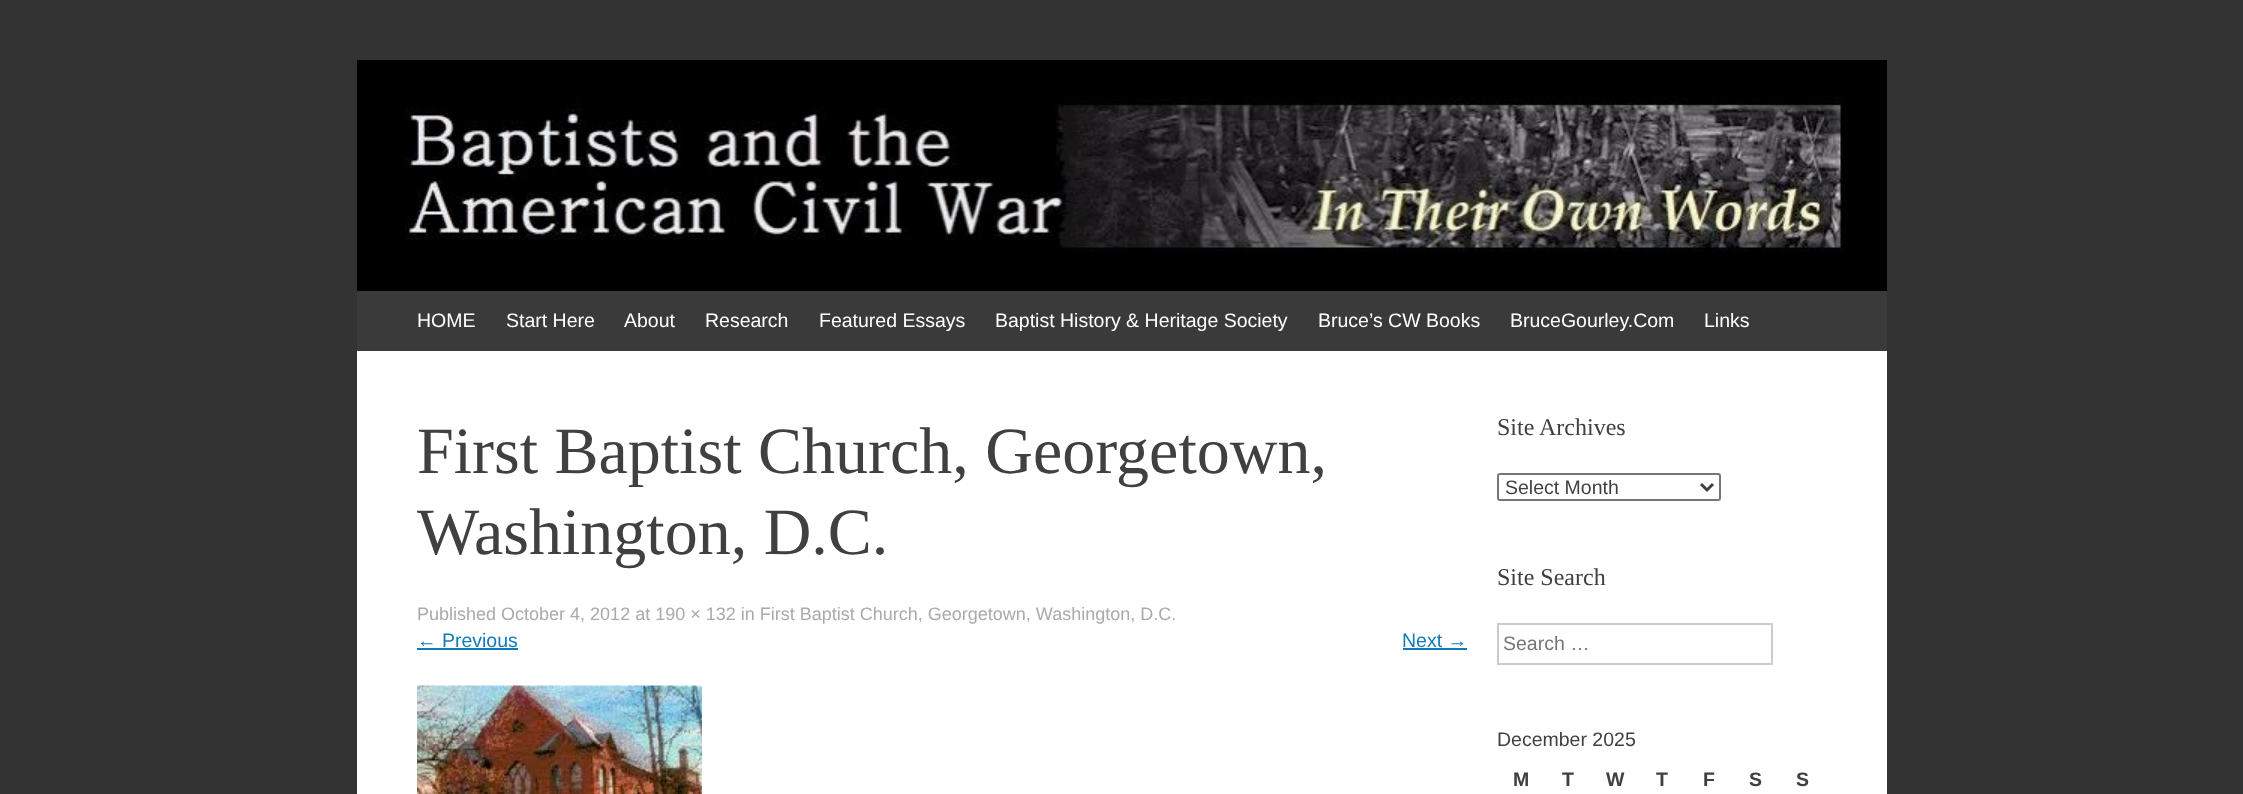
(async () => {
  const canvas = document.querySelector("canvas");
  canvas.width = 2243;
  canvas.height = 794;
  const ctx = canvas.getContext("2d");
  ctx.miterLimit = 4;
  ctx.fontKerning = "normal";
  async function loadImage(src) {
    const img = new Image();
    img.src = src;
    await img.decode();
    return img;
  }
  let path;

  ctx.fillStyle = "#333333";
  ctx.fillRect(0, 0, 2243, 794);
  ctx.fillStyle = "#ffffff";
  ctx.fillRect(357, 351, 1530, 443);
  ctx.drawImage(await loadImage("img/1.png"), 357, 60, 1530, 231);
  for (const [x, y, w, h, color] of [
    [357, 291, 1530, 60, "#3a3a3a"],
    [417, 648, 101, 2, "#117bb8"],
    [1403, 648, 64, 2, "#117bb8"],
  ]) {
    ctx.fillStyle = color;
    ctx.fillRect(x, y, w, h);
  }
  ctx.drawImage(await loadImage("img/2.png"), 417, 685, 285, 109);
  ctx.beginPath();
  ctx.roundRect(1498, 474, 222, 26, 2);
  ctx.strokeStyle = "#767676";
  ctx.lineWidth = 2;
  ctx.stroke();
  path = new Path2D("M1701 484L1707 490L1713 484");
  ctx.strokeStyle = "#404040";
  ctx.lineWidth = 3;
  ctx.stroke(path);
  ctx.strokeStyle = "#cccccc";
  ctx.lineWidth = 2;
  ctx.strokeRect(1498, 624, 274, 40);
  ctx.font = "19.5px Liberation Sans";
  ctx.fillStyle = "#ffffff";
  for (const [text, x, y] of [
    ["HOME", 417, 327],
    ["Start Here", 506, 327],
    ["About", 624, 327],
    ["Research", 705, 327],
    ["Featured Essays", 819, 327],
    ["Baptist History & Heritage Society", 995, 327],
    ["Bruce’s CW Books", 1318, 327],
    ["BruceGourley.Com", 1510, 327],
    ["Links", 1704, 327],
  ]) {
    ctx.fillText(text, x, y);
  }
  ctx.font = "66px Liberation Serif";
  ctx.fillStyle = "#404040";
  ctx.fillText("First Baptist Church, Georgetown,", 417, 473);
  ctx.fillText("Washington, D.C.", 417, 554);
  ctx.font = "18px Liberation Sans";
  ctx.fillStyle = "#aaaaaa";
  ctx.fillText("Published October 4, 2012 at 190 × 132 in First Baptist Church, Georgetown, Washington, D.C.", 417, 620);
  ctx.font = "19.5px Liberation Sans";
  ctx.fillStyle = "#117bb8";
  ctx.fillText("← Previous", 417, 647);
  ctx.fillText("Next →", 1402, 647);
  ctx.font = "24px Liberation Serif";
  ctx.fillStyle = "#404040";
  ctx.fillText("Site Archives", 1497, 435);
  ctx.font = "19.5px Liberation Sans";
  ctx.fillText("Select Month", 1505, 494);
  ctx.font = "24px Liberation Serif";
  ctx.fillText("Site Search", 1497, 585);
  ctx.font = "19.5px Liberation Sans";
  ctx.fillStyle = "#757575";
  ctx.fillText("Search …", 1503, 650);
  ctx.fillStyle = "#404040";
  ctx.fillText("December 2025", 1497, 746);
  ctx.font = "bold 19.5px Liberation Sans";
  for (const [text, x, y] of [
    ["M", 1513, 786],
    ["T", 1562, 786],
    ["W", 1606, 786],
    ["T", 1656, 786],
    ["F", 1703, 786],
    ["S", 1749, 786],
    ["S", 1796, 786],
  ]) {
    ctx.fillText(text, x, y);
  }
})();
